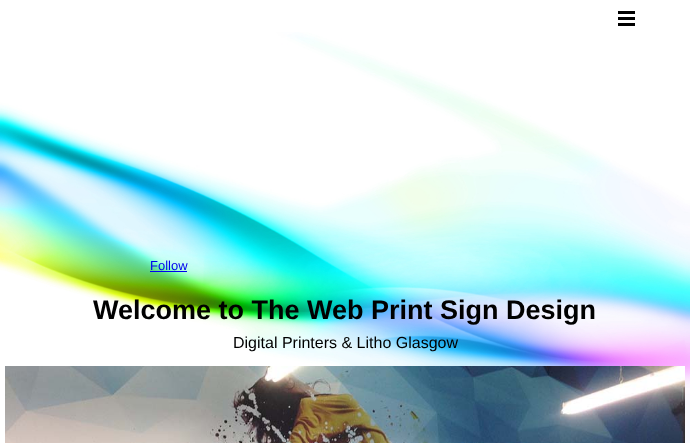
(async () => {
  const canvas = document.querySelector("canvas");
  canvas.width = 690;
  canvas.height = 443;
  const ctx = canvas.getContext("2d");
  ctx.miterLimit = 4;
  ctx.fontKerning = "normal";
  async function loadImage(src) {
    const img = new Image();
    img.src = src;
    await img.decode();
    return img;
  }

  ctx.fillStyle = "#ffffff";
  ctx.fillRect(0, 0, 690, 443);
  ctx.drawImage(await loadImage("img/1.png"), 0, 32, 690, 411);
  for (const [x, y, w, h, color] of [
    [618, 11, 17, 3, "#000000"],
    [618, 17, 17, 3, "#000000"],
    [618, 23, 17, 3, "#000000"],
    [150, 271, 37, 1, "#0000ee"],
  ]) {
    ctx.fillStyle = color;
    ctx.fillRect(x, y, w, h);
  }
  ctx.drawImage(await loadImage("img/2.png"), 5, 366, 680, 77);
  ctx.font = "13px Liberation Sans";
  ctx.fillText("Follow", 150, 270);
  ctx.font = "bold 27px Liberation Sans";
  ctx.fillStyle = "#000000";
  ctx.fillText("Welcome to The Web Print Sign Design", 93, 319);
  ctx.font = "16px Liberation Sans";
  ctx.fillText("Digital Printers & Litho Glasgow", 233, 348);
})();
